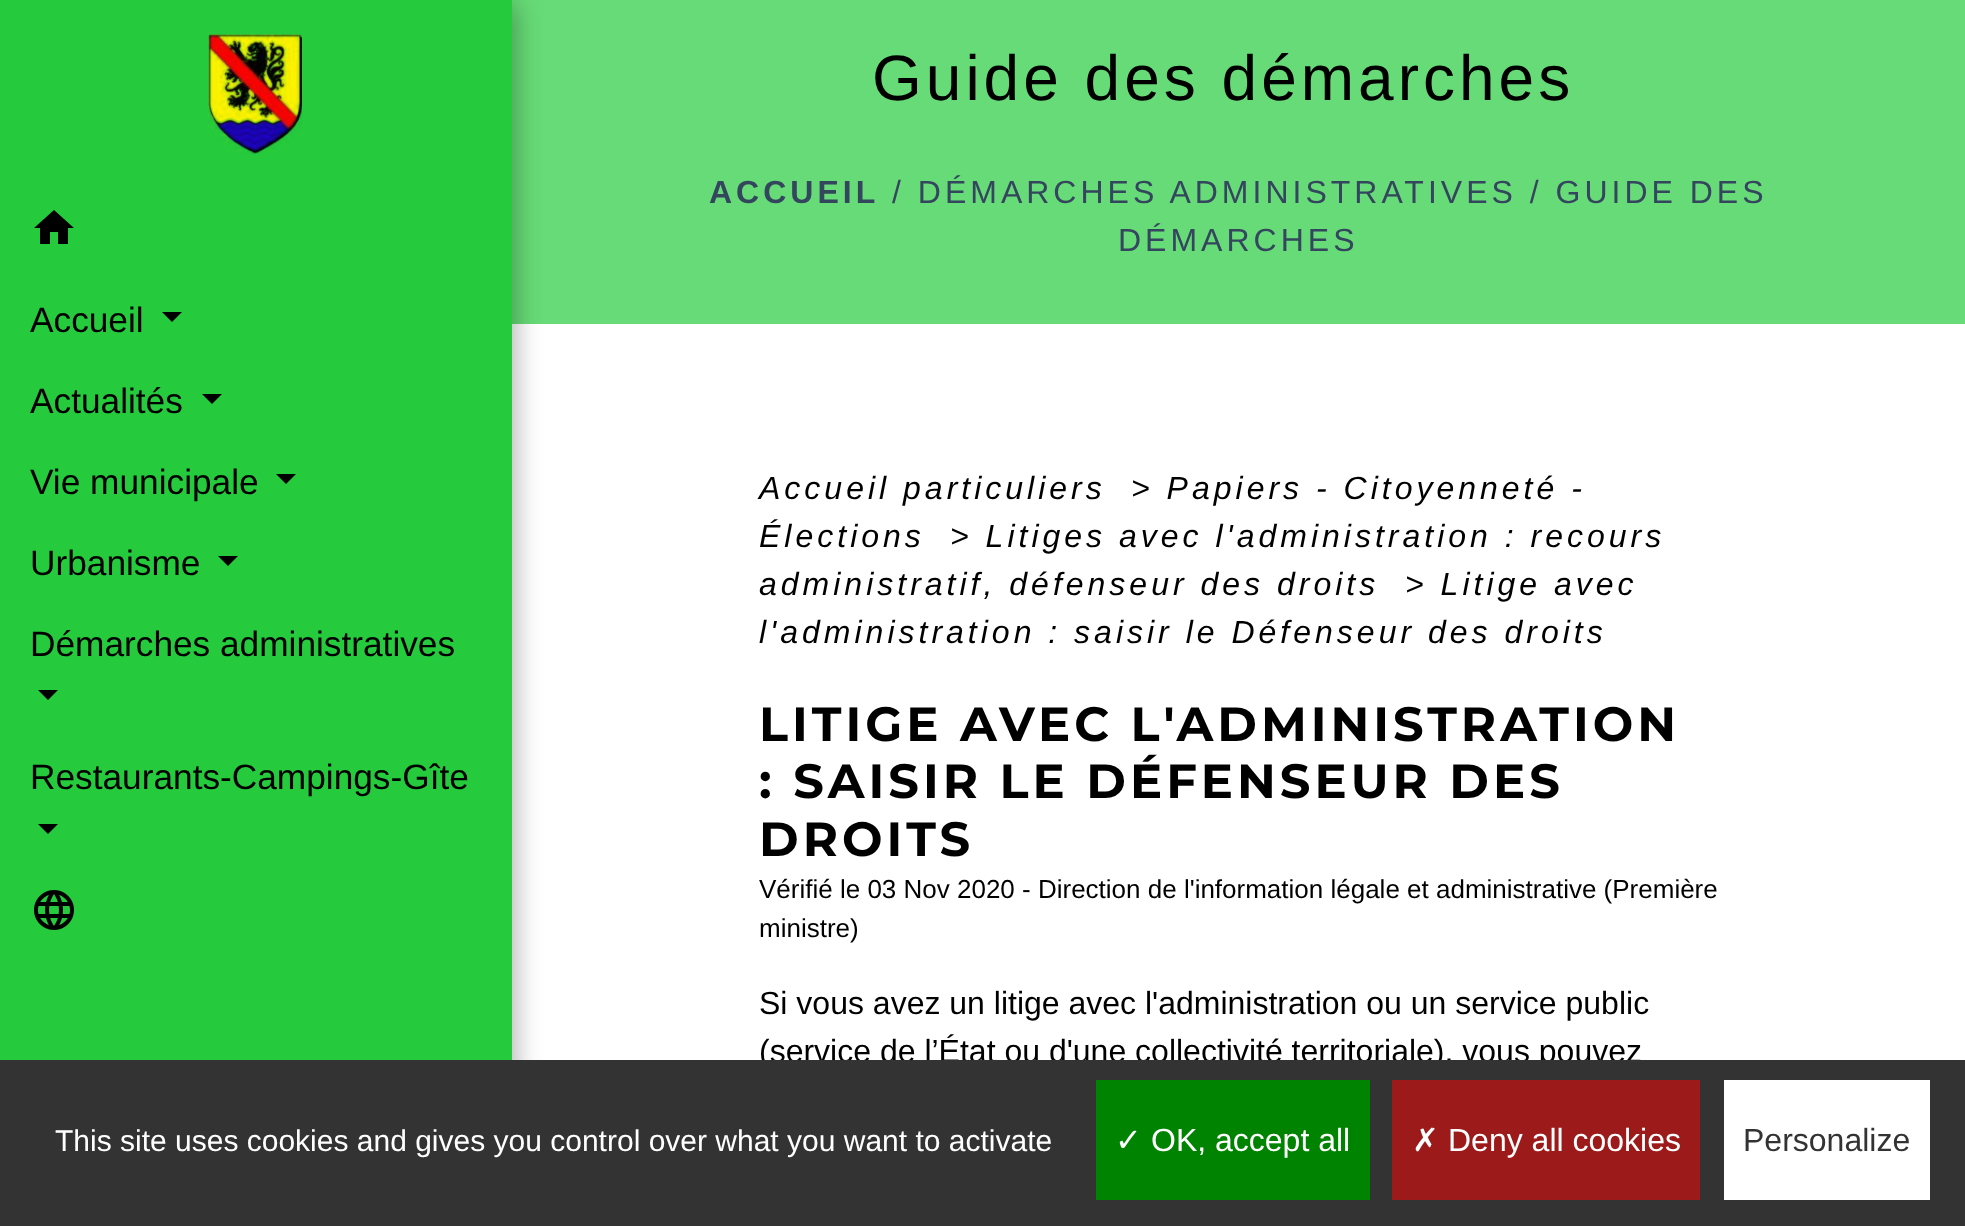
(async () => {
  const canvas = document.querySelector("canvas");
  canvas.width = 1965;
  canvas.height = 1226;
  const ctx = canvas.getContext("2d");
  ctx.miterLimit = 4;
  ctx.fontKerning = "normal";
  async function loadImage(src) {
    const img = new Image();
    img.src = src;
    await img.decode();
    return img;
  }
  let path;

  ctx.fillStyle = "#ffffff";
  ctx.fillRect(0, 0, 1965, 1226);
  ctx.fillStyle = "#67db77";
  ctx.fillRect(512, 0, 1453, 324);
  ctx.fillStyle = "rgba(0, 0, 0, 0.3)";
  ctx.filter = "blur(13px)";
  ctx.beginPath();
  ctx.rect(4, 4, 512, 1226);
  ctx.fill();
  ctx.filter = "none";
  ctx.fillStyle = "#25cb3c";
  ctx.fillRect(0, 0, 512, 1060);
  ctx.drawImage(await loadImage("img/1.png"), 208, 34, 94, 120);
  ctx.fillStyle = "#000000";
  path = new Path2D("M50 244H40V228H34L54 210L74 228H68V244H58V232H50Z");
  ctx.fill(path);
  path = new Path2D("M162 312H182L172 322Z");
  ctx.fill(path);
  path = new Path2D("M202 394H222L212 404Z");
  ctx.fill(path);
  path = new Path2D("M276 474H296L286 484Z");
  ctx.fill(path);
  path = new Path2D("M218 556H238L228 566Z");
  ctx.fill(path);
  path = new Path2D("M38 690H58L48 700Z");
  ctx.fill(path);
  path = new Path2D("M38 824H58L48 834Z");
  ctx.fill(path);
  ctx.drawImage(await loadImage("img/2.png"), 34, 890, 40, 40);
  ctx.font = "35.25px Liberation Sans";
  for (const [text, x, y] of [
    ["Accueil", 30, 332],
    ["Actualités", 30, 413],
    ["Vie municipale", 30, 494],
    ["Urbanisme", 30, 575],
    ["Démarches administratives", 30, 656],
    ["Restaurants-Campings-Gîte", 30, 789],
  ]) {
    ctx.fillText(text, x, y);
  }
  ctx.letterSpacing = "4px";
  ctx.font = "64px Liberation Sans";
  ctx.fillText("Guide des démarches", 872, 100);
  ctx.font = "bold 32px Liberation Sans";
  ctx.fillStyle = "#34455e";
  ctx.fillText("ACCUEIL", 709, 203);
  ctx.font = "32px Liberation Sans";
  ctx.fillText("/ DÉMARCHES ADMINISTRATIVES / GUIDE DES", 892, 203);
  ctx.fillText("DÉMARCHES", 1118, 251);
  ctx.font = "italic 32px Liberation Sans";
  ctx.fillStyle = "#000000";
  for (const [text, x, y] of [
    ["Accueil particuliers", 759, 499],
    ["> Papiers - Citoyenneté -", 1131, 499],
    ["Élections", 759, 547],
    ["> Litiges avec l'administration : recours", 950, 547],
    ["administratif, défenseur des droits", 759, 595],
    ["> Litige avec", 1405, 595],
    ["l'administration : saisir le Défenseur des droits", 759, 643],
  ]) {
    ctx.fillText(text, x, y);
  }
  ctx.font = "bold 48px Montserrat";
  for (const [text, x, y] of [
    ["LITIGE AVEC L'ADMINISTRATION", 759, 741],
    [": SAISIR LE DÉFENSEUR DES", 759, 798],
    ["DROITS", 759, 856],
  ]) {
    ctx.fillText(text, x, y);
  }
  ctx.letterSpacing = "0px";
  ctx.font = "26px Liberation Sans";
  ctx.fillText("Vérifié le 03 Nov 2020 - Direction de l'information légale et administrative (Première", 759, 898);
  ctx.fillText("ministre)", 759, 937);
  ctx.font = "32px Liberation Sans";
  ctx.fillText("Si vous avez un litige avec l'administration ou un service public", 759, 1014);
  ctx.fillText("(service de l’État ou d'une collectivité territoriale), vous pouvez", 759, 1062);
  ctx.fillStyle = "#333333";
  ctx.fillRect(0, 1060, 1965, 166);
  ctx.font = "30px Liberation Sans";
  ctx.fillStyle = "#ffffff";
  ctx.fillText("This site uses cookies and gives you control over what you want to activate", 55, 1151);
  ctx.fillStyle = "#008300";
  ctx.fillRect(1096, 1080, 274, 120);
  ctx.font = "32px DejaVu Sans";
  ctx.fillStyle = "#ffffff";
  ctx.fillText("✓", 1115, 1151);
  ctx.font = "32px Liberation Sans";
  ctx.fillText("OK, accept all", 1151, 1151);
  ctx.fillStyle = "#9c1a1a";
  ctx.fillRect(1392, 1080, 308, 120);
  ctx.font = "32px DejaVu Sans";
  ctx.fillStyle = "#ffffff";
  ctx.fillText("✗", 1412, 1151);
  ctx.font = "32px Liberation Sans";
  ctx.fillText("Deny all cookies", 1448, 1151);
  ctx.fillRect(1724, 1080, 206, 120);
  ctx.fillStyle = "#333333";
  ctx.fillText("Personalize", 1743, 1151);
})();
